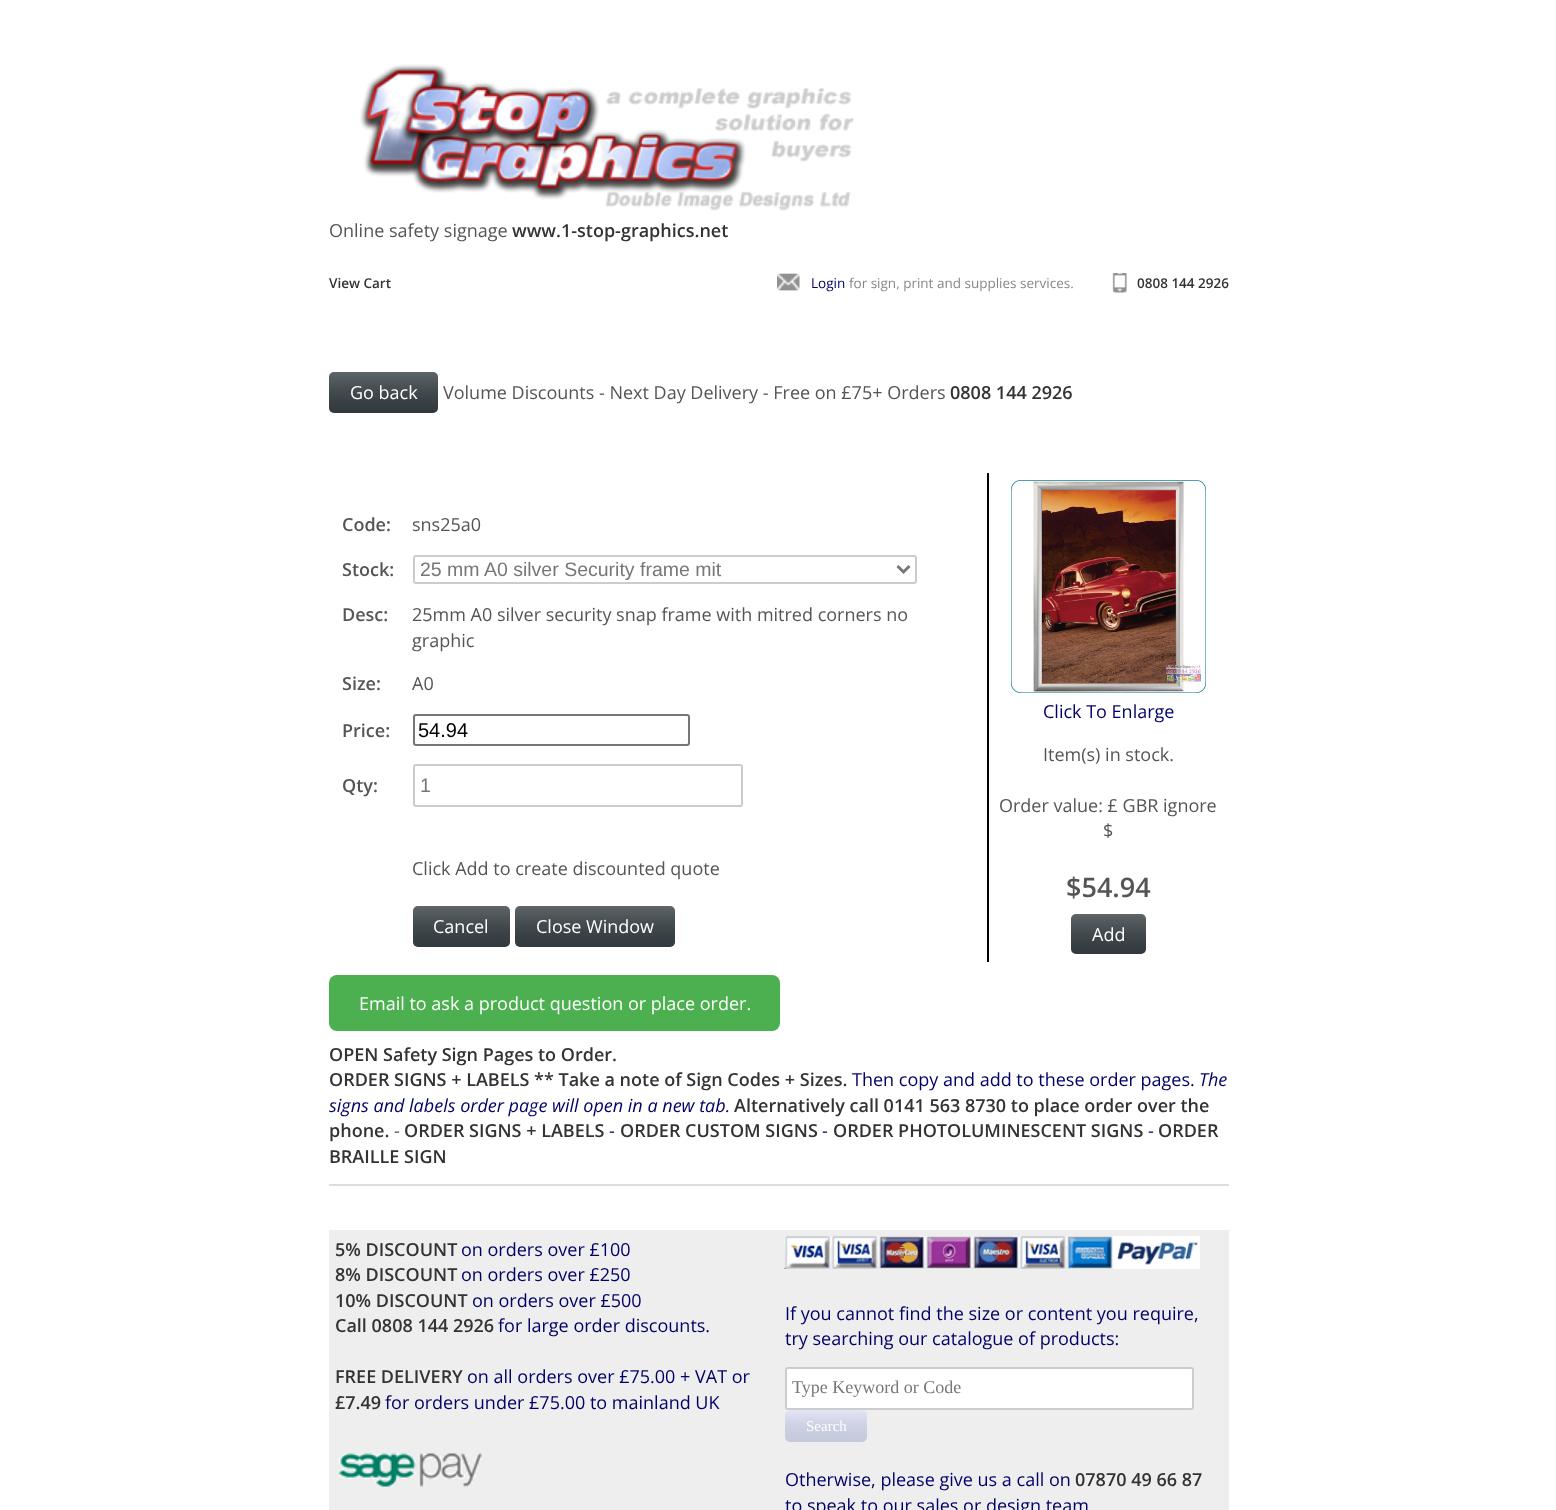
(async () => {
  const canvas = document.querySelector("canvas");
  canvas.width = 1556;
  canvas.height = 1510;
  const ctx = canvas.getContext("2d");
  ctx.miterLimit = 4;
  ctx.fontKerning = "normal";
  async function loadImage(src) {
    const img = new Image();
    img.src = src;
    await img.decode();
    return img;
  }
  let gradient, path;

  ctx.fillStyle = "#ffffff";
  ctx.fillRect(0, 0, 1556, 1510);
  ctx.drawImage(await loadImage("img/1.png"), 360, 64, 494, 147);
  ctx.drawImage(await loadImage("img/2.png"), 777, 273, 23, 18);
  ctx.drawImage(await loadImage("img/3.png"), 1112, 273, 15, 20);
  ctx.fillStyle = "#374045";
  ctx.beginPath();
  ctx.roundRect(329, 372, 109, 41, 5);
  ctx.fill();
  gradient = ctx.createLinearGradient(383, 372, 383, 413);
  gradient.addColorStop(0, "rgba(255, 255, 255, 0.2)");
  gradient.addColorStop(1, "rgba(0, 0, 0, 0.1)");
  ctx.fillStyle = gradient;
  ctx.beginPath();
  ctx.roundRect(329, 372, 109, 41, 5);
  ctx.fill();
  ctx.fillStyle = "#000000";
  ctx.fillRect(987, 473, 2, 489);
  ctx.beginPath();
  ctx.roundRect(414, 556, 502, 27, 2);
  ctx.strokeStyle = "#cccccc";
  ctx.lineWidth = 2;
  ctx.stroke();
  path = new Path2D("M897.5 566L903.5 572L909.5 566");
  ctx.strokeStyle = "#777777";
  ctx.lineWidth = 3;
  ctx.stroke(path);
  ctx.beginPath();
  ctx.roundRect(414, 715, 275, 30, 2);
  ctx.strokeStyle = "#767676";
  ctx.lineWidth = 2;
  ctx.stroke();
  ctx.beginPath();
  ctx.roundRect(414, 765, 328, 41, 2);
  ctx.strokeStyle = "#cccccc";
  ctx.stroke();
  ctx.fillStyle = "#374045";
  ctx.beginPath();
  ctx.roundRect(413, 906, 97, 41, 5);
  ctx.fill();
  gradient = ctx.createLinearGradient(461, 906, 461, 947);
  gradient.addColorStop(0, "rgba(255, 255, 255, 0.2)");
  gradient.addColorStop(1, "rgba(0, 0, 0, 0.1)");
  ctx.fillStyle = gradient;
  ctx.beginPath();
  ctx.roundRect(413, 906, 97, 41, 5);
  ctx.fill();
  ctx.fillStyle = "#374045";
  ctx.beginPath();
  ctx.roundRect(515, 906, 160, 41, 5);
  ctx.fill();
  gradient = ctx.createLinearGradient(595, 906, 595, 947);
  gradient.addColorStop(0, "rgba(255, 255, 255, 0.2)");
  gradient.addColorStop(1, "rgba(0, 0, 0, 0.1)");
  ctx.fillStyle = gradient;
  ctx.beginPath();
  ctx.roundRect(515, 906, 160, 41, 5);
  ctx.fill();
  ctx.drawImage(await loadImage("img/4.png"), 1011, 480, 195, 213);
  ctx.fillStyle = "#374045";
  ctx.beginPath();
  ctx.roundRect(1071, 914, 75, 40, 5);
  ctx.fill();
  gradient = ctx.createLinearGradient(1109, 914, 1109, 954);
  gradient.addColorStop(0, "rgba(255, 255, 255, 0.2)");
  gradient.addColorStop(1, "rgba(0, 0, 0, 0.1)");
  ctx.fillStyle = gradient;
  ctx.beginPath();
  ctx.roundRect(1071, 914, 75, 40, 5);
  ctx.fill();
  ctx.fillStyle = "#4caf50";
  ctx.beginPath();
  ctx.roundRect(329, 975, 451, 56, 8);
  ctx.fill();
  ctx.fillStyle = "#dddddd";
  ctx.fillRect(329, 1184, 900, 2);
  ctx.fillStyle = "#eeeeee";
  ctx.fillRect(329, 1230, 900, 280);
  ctx.drawImage(await loadImage("img/5.png"), 338, 1453, 144, 34);
  ctx.drawImage(await loadImage("img/6.png"), 784, 1236, 416, 33);
  ctx.fillStyle = "#ffffff";
  ctx.beginPath();
  ctx.roundRect(786, 1368, 407, 41, 2);
  ctx.fill();
  ctx.stroke();
  ctx.fillStyle = "#dbe0f5";
  ctx.beginPath();
  ctx.roundRect(785, 1410, 82, 32, 5);
  ctx.fill();
  gradient = ctx.createLinearGradient(826, 1410, 826, 1442);
  gradient.addColorStop(0, "rgba(255, 255, 255, 0.2)");
  gradient.addColorStop(1, "rgba(0, 0, 0, 0.1)");
  ctx.fillStyle = gradient;
  ctx.beginPath();
  ctx.roundRect(785, 1410, 82, 32, 5);
  ctx.fill();
  ctx.font = "18px Open Sans";
  ctx.fillStyle = "#555555";
  ctx.fillText("Online safety signage", 329, 237);
  ctx.font = "600 18px Open Sans";
  ctx.fillStyle = "#333333";
  ctx.fillText("www.1-stop-graphics.net", 512, 237);
  ctx.font = "600 13.5px Open Sans";
  ctx.fillText("View Cart", 329, 288);
  ctx.font = "13.5px Open Sans";
  ctx.fillStyle = "#000066";
  ctx.fillText("Login", 811, 288);
  ctx.fillStyle = "#888888";
  ctx.fillText("for sign, print and supplies services.", 849, 288);
  ctx.font = "600 13.5px Open Sans";
  ctx.fillStyle = "#333333";
  ctx.fillText("0808 144 2926", 1137, 288);
  ctx.font = "18px Open Sans";
  ctx.fillStyle = "#ffffff";
  ctx.fillText("Go back", 350, 399);
  ctx.fillStyle = "#555555";
  ctx.fillText("Volume Discounts - Next Day Delivery - Free on £75+ Orders", 443, 399);
  ctx.font = "600 18px Open Sans";
  ctx.fillStyle = "#333333";
  ctx.fillText("0808 144 2926", 950, 399);
  ctx.fillStyle = "#555555";
  ctx.fillText("Code:", 342, 531);
  ctx.font = "18px Open Sans";
  ctx.fillText("sns25a0", 412, 531);
  ctx.font = "600 18px Open Sans";
  ctx.fillText("Stock:", 342, 576);
  ctx.font = "19.5px Liberation Sans";
  ctx.fillStyle = "#777777";
  ctx.fillText("25 mm A0 silver Security frame mit", 420, 576);
  ctx.font = "600 18px Open Sans";
  ctx.fillStyle = "#555555";
  ctx.fillText("Desc:", 342, 621);
  ctx.font = "18px Open Sans";
  ctx.fillText("25mm A0 silver security snap frame with mitred corners no", 412, 621);
  ctx.fillText("graphic", 412, 647);
  ctx.font = "600 18px Open Sans";
  ctx.fillText("Size:", 342, 690);
  ctx.font = "18px Open Sans";
  ctx.fillText("A0", 412, 690);
  ctx.font = "600 18px Open Sans";
  ctx.fillText("Price:", 342, 737);
  ctx.font = "20px Liberation Sans";
  ctx.fillStyle = "#000000";
  ctx.fillText("54.94", 418, 737);
  ctx.font = "600 18px Open Sans";
  ctx.fillStyle = "#555555";
  ctx.fillText("Qty:", 342, 792);
  ctx.font = "19.5px Liberation Sans";
  ctx.fillStyle = "#777777";
  ctx.fillText("1", 420, 792);
  ctx.font = "18px Open Sans";
  ctx.fillStyle = "#555555";
  ctx.fillText("Click Add to create discounted quote", 412, 875);
  ctx.fillStyle = "#ffffff";
  ctx.fillText("Cancel", 433, 933);
  ctx.fillText("Close Window", 536, 933);
  ctx.fillStyle = "#000066";
  ctx.fillText("Click To Enlarge", 1043, 718);
  ctx.fillStyle = "#555555";
  for (const [text, x, y] of [
    ["Item(s) in stock.", 1043, 761],
    ["Order value: £ GBR ignore", 999, 812],
    ["$", 1103, 837],
  ]) {
    ctx.fillText(text, x, y);
  }
  ctx.font = "600 27px Open Sans";
  ctx.fillText("$54.94", 1066, 897);
  ctx.font = "18px Open Sans";
  ctx.fillStyle = "#ffffff";
  ctx.fillText("Add", 1092, 941);
  ctx.fillText("Email to ask a product question or place order.", 359, 1010);
  ctx.font = "600 18px Open Sans";
  ctx.fillStyle = "#333333";
  ctx.fillText("OPEN Safety Sign Pages to Order.", 329, 1061);
  ctx.fillText("ORDER SIGNS + LABELS ** Take a note of Sign Codes + Sizes.", 329, 1086);
  ctx.font = "18px Open Sans";
  ctx.fillStyle = "#000066";
  ctx.fillText("Then copy and add to these order pages.", 852, 1086);
  ctx.font = "italic 18px Open Sans";
  ctx.fillText("The", 1199, 1086);
  ctx.fillText("signs and labels order page will open in a new tab.", 329, 1112);
  ctx.font = "600 18px Open Sans";
  ctx.fillStyle = "#333333";
  ctx.fillText("Alternatively call 0141 563 8730 to place order over the", 734, 1112);
  ctx.fillText("phone.", 329, 1137);
  ctx.font = "18px Open Sans";
  ctx.fillStyle = "#555555";
  ctx.fillText("-", 394, 1137);
  ctx.font = "600 18px Open Sans";
  ctx.fillStyle = "#333333";
  ctx.fillText("ORDER SIGNS + LABELS", 404, 1137);
  ctx.font = "18px Open Sans";
  ctx.fillStyle = "#000066";
  ctx.fillText("-", 609, 1137);
  ctx.font = "600 18px Open Sans";
  ctx.fillStyle = "#333333";
  ctx.fillText("ORDER CUSTOM SIGNS", 620, 1137);
  ctx.font = "18px Open Sans";
  ctx.fillStyle = "#000066";
  ctx.fillText("-", 822, 1137);
  ctx.font = "600 18px Open Sans";
  ctx.fillStyle = "#333333";
  ctx.fillText("ORDER PHOTOLUMINESCENT SIGNS", 833, 1137);
  ctx.font = "18px Open Sans";
  ctx.fillStyle = "#000066";
  ctx.fillText("-", 1148, 1137);
  ctx.font = "600 18px Open Sans";
  ctx.fillStyle = "#333333";
  for (const [text, x, y] of [
    ["ORDER", 1158, 1137],
    ["BRAILLE SIGN", 329, 1163],
    ["5% DISCOUNT", 335, 1256],
  ]) {
    ctx.fillText(text, x, y);
  }
  ctx.font = "18px Open Sans";
  ctx.fillStyle = "#000066";
  ctx.fillText("on orders over £100", 461, 1256);
  ctx.font = "600 18px Open Sans";
  ctx.fillStyle = "#333333";
  ctx.fillText("8% DISCOUNT", 335, 1281);
  ctx.font = "18px Open Sans";
  ctx.fillStyle = "#000066";
  ctx.fillText("on orders over £250", 461, 1281);
  ctx.font = "600 18px Open Sans";
  ctx.fillStyle = "#333333";
  ctx.fillText("10% DISCOUNT", 335, 1307);
  ctx.font = "18px Open Sans";
  ctx.fillStyle = "#000066";
  ctx.fillText("on orders over £500", 472, 1307);
  ctx.font = "600 18px Open Sans";
  ctx.fillStyle = "#333333";
  ctx.fillText("Call 0808 144 2926", 335, 1332);
  ctx.font = "18px Open Sans";
  ctx.fillStyle = "#000066";
  ctx.fillText("for large order discounts.", 498, 1332);
  ctx.font = "600 18px Open Sans";
  ctx.fillStyle = "#333333";
  ctx.fillText("FREE DELIVERY", 335, 1383);
  ctx.font = "18px Open Sans";
  ctx.fillStyle = "#000066";
  ctx.fillText("on all orders over £75.00 + VAT or", 467, 1383);
  ctx.font = "600 18px Open Sans";
  ctx.fillStyle = "#333333";
  ctx.fillText("£7.49", 335, 1409);
  ctx.font = "18px Open Sans";
  ctx.fillStyle = "#000066";
  for (const [text, x, y] of [
    ["for orders under £75.00 to mainland UK", 385, 1409],
    ["If you cannot find the size or content you require,", 785, 1320],
    ["try searching our catalogue of products:", 785, 1345],
  ]) {
    ctx.fillText(text, x, y);
  }
  ctx.font = "18px Liberation Serif";
  ctx.fillStyle = "#777777";
  ctx.fillText("Type Keyword or Code", 792, 1393);
  ctx.font = "15px Liberation Serif";
  ctx.fillStyle = "#ffffff";
  ctx.fillText("Search", 806, 1431);
  ctx.font = "18px Open Sans";
  ctx.fillStyle = "#000066";
  ctx.fillText("Otherwise, please give us a call on", 785, 1486);
  ctx.font = "600 18px Open Sans";
  ctx.fillStyle = "#333333";
  ctx.fillText("07870 49 66 87", 1075, 1486);
  ctx.font = "18px Open Sans";
  ctx.fillStyle = "#000066";
  ctx.fillText("to speak to our sales or design team", 785, 1512);
})();
